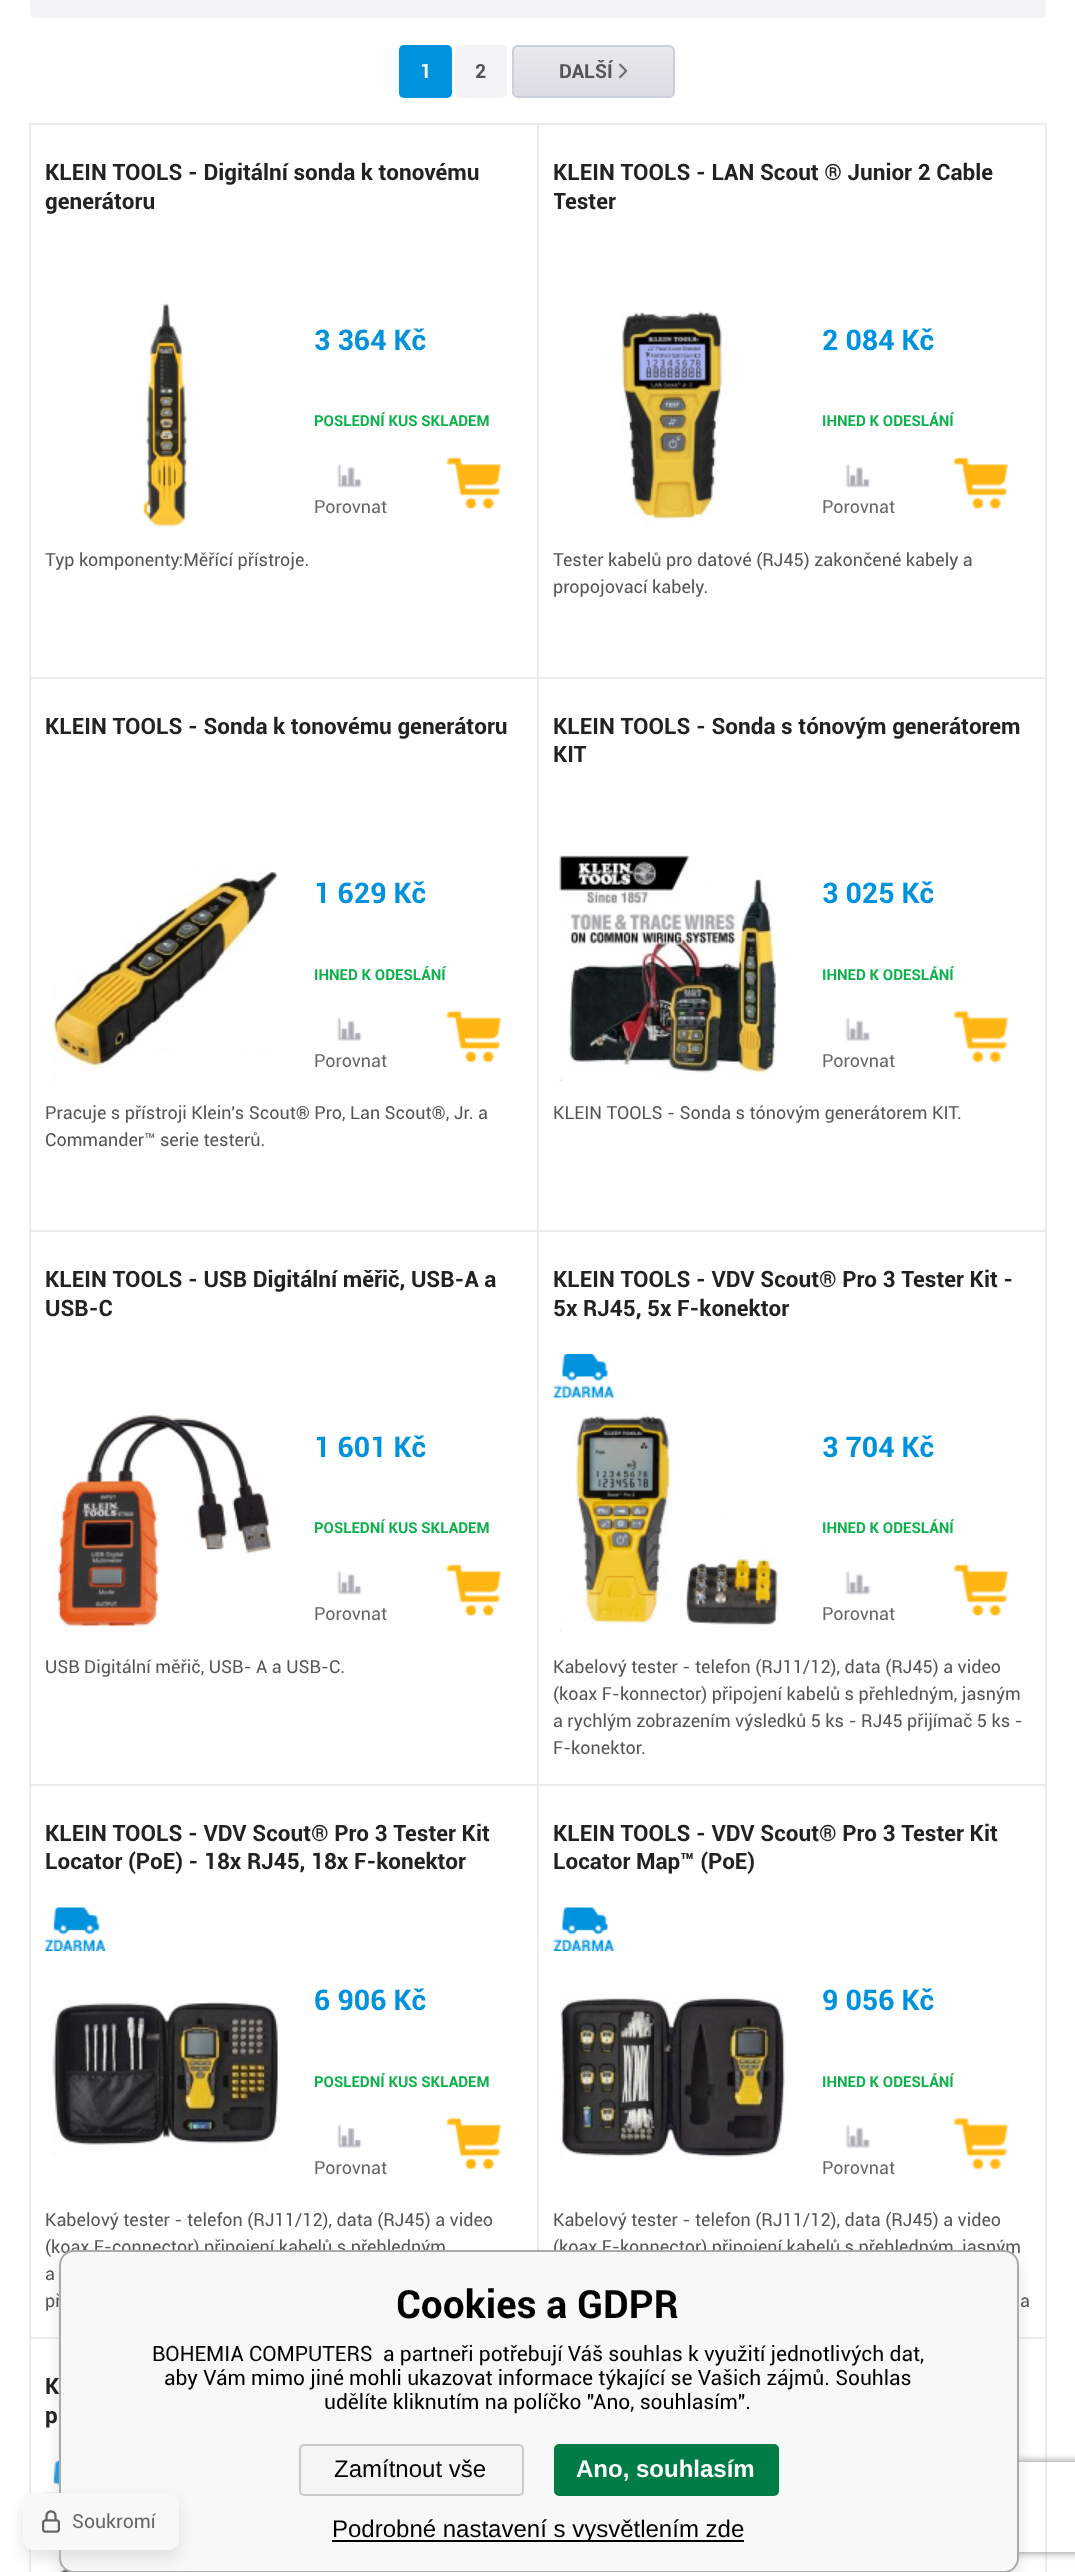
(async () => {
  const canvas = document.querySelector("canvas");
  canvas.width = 1075;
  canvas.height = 2572;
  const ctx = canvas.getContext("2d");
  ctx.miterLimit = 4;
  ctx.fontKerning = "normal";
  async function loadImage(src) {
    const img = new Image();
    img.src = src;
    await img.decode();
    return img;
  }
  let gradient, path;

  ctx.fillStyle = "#ffffff";
  ctx.fillRect(0, 0, 1075, 2572);
  ctx.fillStyle = "#f4f4f7";
  ctx.beginPath();
  ctx.roundRect(30, -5, 1016, 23, 5);
  ctx.fill();
  ctx.fillStyle = "#0092dd";
  ctx.beginPath();
  ctx.roundRect(399, 45, 53, 53, 5);
  ctx.fill();
  ctx.fillStyle = "#f4f4f7";
  ctx.beginPath();
  ctx.roundRect(455, 45, 52, 53, 5);
  ctx.fill();
  ctx.save();
  ctx.beginPath();
  ctx.roundRect(512, 45, 163, 53, 6);
  ctx.clip();
  gradient = ctx.createLinearGradient(593, 46, 593, 96);
  gradient.addColorStop(0, "#e8eaef");
  gradient.addColorStop(1, "#d9dce3");
  ctx.fillStyle = gradient;
  ctx.fillRect(512, 47, 163, 49);
  ctx.restore();
  ctx.beginPath();
  ctx.roundRect(513, 46, 161, 51, 5);
  ctx.strokeStyle = "#cbcfda";
  ctx.lineWidth = 2;
  ctx.stroke();
  ctx.drawImage(await loadImage("img/1.png"), 618, 63, 9, 16);
  ctx.drawImage(await loadImage("img/2.png"), 137, 303, 52, 224);
  ctx.strokeStyle = "#eaebef";
  ctx.strokeRect(30, 124, 509, 555);
  ctx.drawImage(await loadImage("img/3.png"), 337, 464, 25, 24);
  ctx.drawImage(await loadImage("img/4.png"), 447, 457, 54, 53);
  ctx.fillStyle = "#ffffff";
  ctx.fillRect(539, 125, 1, 552);
  ctx.drawImage(await loadImage("img/5.png"), 620, 311, 107, 216);
  ctx.strokeRect(538, 124, 508, 555);
  ctx.drawImage(await loadImage("img/6.png"), 846, 464, 25, 24);
  ctx.drawImage(await loadImage("img/7.png"), 954, 457, 54, 53);
  ctx.fillRect(31, 679, 506, 1);
  ctx.drawImage(await loadImage("img/8.png"), 52, 867, 226, 214);
  ctx.strokeRect(30, 678, 509, 554);
  ctx.drawImage(await loadImage("img/9.png"), 337, 1018, 25, 23);
  ctx.drawImage(await loadImage("img/10.png"), 447, 1010, 54, 53);
  ctx.fillRect(539, 679, 506, 551);
  ctx.drawImage(await loadImage("img/11.png"), 559, 855, 218, 227);
  ctx.strokeRect(538, 678, 508, 554);
  ctx.drawImage(await loadImage("img/12.png"), 845, 1017, 26, 25);
  ctx.drawImage(await loadImage("img/13.png"), 953, 1010, 56, 54);
  ctx.fillRect(31, 1232, 506, 1);
  ctx.drawImage(await loadImage("img/14.png"), 52, 1413, 221, 220);
  ctx.strokeRect(30, 1231, 509, 555);
  ctx.drawImage(await loadImage("img/3.png"), 337, 1571, 25, 24);
  ctx.drawImage(await loadImage("img/4.png"), 447, 1564, 54, 53);
  ctx.fillRect(539, 1232, 506, 552);
  ctx.drawImage(await loadImage("img/16.png"), 559, 1415, 221, 217);
  ctx.strokeRect(538, 1231, 508, 555);
  ctx.drawImage(await loadImage("img/15.png"), 553, 1354, 61, 44);
  ctx.drawImage(await loadImage("img/17.png"), 845, 1571, 26, 24);
  ctx.drawImage(await loadImage("img/18.png"), 953, 1564, 56, 53);
  ctx.fillRect(31, 1786, 506, 1);
  ctx.drawImage(await loadImage("img/20.png"), 52, 2001, 226, 154);
  ctx.strokeRect(30, 1785, 509, 554);
  ctx.drawImage(await loadImage("img/19.png"), 45, 1907, 60, 44);
  ctx.drawImage(await loadImage("img/9.png"), 337, 2125, 25, 23);
  ctx.drawImage(await loadImage("img/10.png"), 447, 2117, 54, 53);
  ctx.fillRect(539, 1786, 506, 551);
  ctx.drawImage(await loadImage("img/22.png"), 559, 1997, 226, 162);
  ctx.strokeRect(538, 1785, 508, 554);
  ctx.drawImage(await loadImage("img/21.png"), 553, 1907, 61, 44);
  ctx.drawImage(await loadImage("img/12.png"), 845, 2124, 26, 25);
  ctx.drawImage(await loadImage("img/13.png"), 953, 2117, 56, 54);
  ctx.fillRect(31, 2339, 29, 1);
  ctx.drawImage(await loadImage("img/24.png"), 60, 2563, 9, 9);
  ctx.strokeRect(30, 2338, 509, 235);
  ctx.drawImage(await loadImage("img/23.png"), 45, 2461, 14, 32);
  ctx.fillRect(1009, 2339, 36, 1);
  ctx.strokeRect(538, 2338, 508, 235);
  ctx.fillStyle = "rgba(200, 200, 200, 0.5)";
  ctx.filter = "blur(7.5px)";
  ctx.beginPath();
  ctx.roundRect(59, 2258, 960, 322, 15);
  ctx.fill();
  ctx.filter = "none";
  ctx.save();
  path = new Path2D("M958 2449H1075V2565H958ZM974 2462H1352C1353.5 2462 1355 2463.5 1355 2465V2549C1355 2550.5 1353.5 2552 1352 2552H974C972.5 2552 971 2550.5 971 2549V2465C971 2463.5 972.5 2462 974 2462Z");
  ctx.clip(path, "evenodd");
  ctx.fillStyle = "#808080";
  ctx.filter = "blur(4px)";
  ctx.beginPath();
  ctx.roundRect(971, 2462, 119, 90, 3);
  ctx.fill();
  ctx.filter = "none";
  ctx.restore();
  ctx.font = "bold 19.5px Roboto";
  ctx.fillStyle = "#ffffff";
  ctx.fillText("1", 420, 78);
  ctx.fillStyle = "#555555";
  ctx.fillText("2", 475, 78);
  ctx.fillText("DALŠÍ", 559, 78);
  ctx.font = "bold 22.5px Roboto";
  ctx.fillStyle = "#222222";
  ctx.fillText("KLEIN TOOLS - Digitální sonda k tonovému", 45, 180);
  ctx.fillText("generátoru", 45, 209);
  ctx.font = "bold 28.5px Roboto";
  ctx.fillStyle = "#0092dd";
  ctx.fillText("3 364 Kč", 314, 350);
  ctx.font = "bold 15px Roboto";
  ctx.fillStyle = "#0db14b";
  ctx.fillText("POSLEDNÍ KUS SKLADEM", 314, 426);
  ctx.font = "18px Roboto";
  ctx.fillStyle = "#666666";
  ctx.fillText("Porovnat", 314, 513);
  ctx.fillStyle = "#555555";
  ctx.fillText("Typ komponenty:Měřící přístroje.", 45, 566);
  ctx.font = "bold 22.5px Roboto";
  ctx.fillStyle = "#222222";
  ctx.fillText("KLEIN TOOLS - LAN Scout ® Junior 2 Cable", 553, 180);
  ctx.save();
  ctx.beginPath();
  ctx.rect(554, 159, 477, 57);
  ctx.clip();
  ctx.fillText("Tester", 553, 209);
  ctx.restore();
  ctx.font = "bold 28.5px Roboto";
  ctx.fillStyle = "#0092dd";
  ctx.fillText("2 084 Kč", 822, 350);
  ctx.font = "bold 15px Roboto";
  ctx.fillStyle = "#0db14b";
  ctx.fillText("IHNED K ODESLÁNÍ", 822, 426);
  ctx.font = "18px Roboto";
  ctx.fillStyle = "#666666";
  ctx.fillText("Porovnat", 822, 513);
  ctx.fillStyle = "#555555";
  ctx.fillText("Tester kabelů pro datové (RJ45) zakončené kabely a", 553, 566);
  ctx.fillText("propojovací kabely.", 553, 593);
  ctx.font = "bold 22.5px Roboto";
  ctx.fillStyle = "#222222";
  ctx.fillText("KLEIN TOOLS - Sonda k tonovému generátoru", 45, 734);
  ctx.font = "bold 28.5px Roboto";
  ctx.fillStyle = "#0092dd";
  ctx.fillText("1 629 Kč", 314, 903);
  ctx.font = "bold 15px Roboto";
  ctx.fillStyle = "#0db14b";
  ctx.fillText("IHNED K ODESLÁNÍ", 314, 980);
  ctx.font = "18px Roboto";
  ctx.fillStyle = "#666666";
  ctx.fillText("Porovnat", 314, 1067);
  ctx.fillStyle = "#555555";
  ctx.fillText("Pracuje s přístroji Klein's Scout® Pro, Lan Scout®, Jr. a", 45, 1119);
  ctx.fillText("Commander™ serie testerů.", 45, 1146);
  ctx.font = "bold 22.5px Roboto";
  ctx.fillStyle = "#222222";
  ctx.fillText("KLEIN TOOLS - Sonda s tónovým generátorem", 553, 734);
  ctx.fillText("KIT", 553, 762);
  ctx.font = "bold 28.5px Roboto";
  ctx.fillStyle = "#0092dd";
  ctx.fillText("3 025 Kč", 822, 903);
  ctx.font = "bold 15px Roboto";
  ctx.fillStyle = "#0db14b";
  ctx.fillText("IHNED K ODESLÁNÍ", 822, 980);
  ctx.font = "18px Roboto";
  ctx.fillStyle = "#666666";
  ctx.fillText("Porovnat", 822, 1067);
  ctx.fillStyle = "#555555";
  ctx.fillText("KLEIN TOOLS - Sonda s tónovým generátorem KIT.", 553, 1119);
  ctx.font = "bold 22.5px Roboto";
  ctx.fillStyle = "#222222";
  ctx.fillText("KLEIN TOOLS - USB Digitální měřič, USB-A a", 45, 1287);
  ctx.fillText("USB-C", 45, 1316);
  ctx.font = "bold 28.5px Roboto";
  ctx.fillStyle = "#0092dd";
  ctx.fillText("1 601 Kč", 314, 1457);
  ctx.font = "bold 15px Roboto";
  ctx.fillStyle = "#0db14b";
  ctx.fillText("POSLEDNÍ KUS SKLADEM", 314, 1533);
  ctx.font = "18px Roboto";
  ctx.fillStyle = "#666666";
  ctx.fillText("Porovnat", 314, 1620);
  ctx.fillStyle = "#555555";
  ctx.fillText("USB Digitální měřič, USB- A a USB-C.", 45, 1673);
  ctx.font = "bold 22.5px Roboto";
  ctx.fillStyle = "#222222";
  ctx.fillText("KLEIN TOOLS - VDV Scout® Pro 3 Tester Kit -", 553, 1287);
  ctx.fillText("5x RJ45, 5x F-konektor", 553, 1316);
  ctx.font = "bold 28.5px Roboto";
  ctx.fillStyle = "#0092dd";
  ctx.fillText("3 704 Kč", 822, 1457);
  ctx.font = "bold 15px Roboto";
  ctx.fillStyle = "#0db14b";
  ctx.fillText("IHNED K ODESLÁNÍ", 822, 1533);
  ctx.font = "18px Roboto";
  ctx.fillStyle = "#666666";
  ctx.fillText("Porovnat", 822, 1620);
  ctx.fillStyle = "#555555";
  ctx.fillText("Kabelový tester - telefon (RJ11/12), data (RJ45) a video", 553, 1673);
  ctx.fillText("(koax F-konnector) připojení kabelů s přehledným, jasným", 553, 1700);
  ctx.save();
  ctx.beginPath();
  ctx.rect(554, 1653, 477, 105);
  ctx.clip();
  ctx.fillText("a rychlým zobrazením výsledků 5 ks - RJ45 přijímač 5 ks -", 553, 1727);
  ctx.restore();
  ctx.fillText("F-konektor.", 553, 1754);
  ctx.font = "bold 22.5px Roboto";
  ctx.fillStyle = "#222222";
  ctx.fillText("KLEIN TOOLS - VDV Scout® Pro 3 Tester Kit", 45, 1841);
  ctx.fillText("Locator (PoE) - 18x RJ45, 18x F-konektor", 45, 1869);
  ctx.font = "bold 28.5px Roboto";
  ctx.fillStyle = "#0092dd";
  ctx.fillText("6 906 Kč", 314, 2010);
  ctx.font = "bold 15px Roboto";
  ctx.fillStyle = "#0db14b";
  ctx.fillText("POSLEDNÍ KUS SKLADEM", 314, 2087);
  ctx.font = "18px Roboto";
  ctx.fillStyle = "#666666";
  ctx.fillText("Porovnat", 314, 2174);
  ctx.fillStyle = "#555555";
  for (const [text, x, y] of [
    ["Kabelový tester - telefon (RJ11/12), data (RJ45) a video", 45, 2226],
    ["(koax F-connector) připojení kabelů s přehledným", 45, 2253],
    ["a", 45, 2280],
    ["př", 45, 2307],
  ]) {
    ctx.fillText(text, x, y);
  }
  ctx.font = "bold 22.5px Roboto";
  ctx.fillStyle = "#222222";
  ctx.fillText("KLEIN TOOLS - VDV Scout® Pro 3 Tester Kit", 553, 1841);
  ctx.fillText("Locator Map™ (PoE)", 553, 1869);
  ctx.font = "bold 28.5px Roboto";
  ctx.fillStyle = "#0092dd";
  ctx.fillText("9 056 Kč", 822, 2010);
  ctx.font = "bold 15px Roboto";
  ctx.fillStyle = "#0db14b";
  ctx.fillText("IHNED K ODESLÁNÍ", 822, 2087);
  ctx.font = "18px Roboto";
  ctx.fillStyle = "#666666";
  ctx.fillText("Porovnat", 822, 2174);
  ctx.fillStyle = "#555555";
  for (const [text, x, y] of [
    ["Kabelový tester - telefon (RJ11/12), data (RJ45) a video", 553, 2226],
    ["(koax F-konnector) připojení kabelů s přehledným", 553, 2253],
    ["jasným", 962, 2253],
    ["a", 1020, 2307],
  ]) {
    ctx.fillText(text, x, y);
  }
  ctx.font = "bold 22.5px Roboto";
  ctx.fillStyle = "#222222";
  ctx.fillText("K", 45, 2394);
  ctx.fillText("p", 45, 2423);
  ctx.fillStyle = "#f8f8f8";
  ctx.beginPath();
  ctx.roundRect(60, 2251, 958, 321, 14);
  ctx.fill();
  ctx.strokeStyle = "#aaaaaa";
  ctx.stroke();
  ctx.fillStyle = "rgba(200, 200, 200, 0.5)";
  ctx.filter = "blur(7.5px)";
  ctx.beginPath();
  ctx.roundRect(23, 2501, 156, 57, 11);
  ctx.fill();
  ctx.filter = "none";
  ctx.fillStyle = "#f8f8f8";
  ctx.beginPath();
  ctx.roundRect(23, 2493, 156, 57, 11);
  ctx.fill();
  ctx.font = "19.5px Roboto";
  ctx.fillStyle = "#666666";
  ctx.fillText("Soukromí", 72, 2528);
  ctx.drawImage(await loadImage("img/25.png"), 42, 2510, 18, 23);
  ctx.font = "bold 39px Roboto";
  ctx.fillStyle = "#000000";
  ctx.fillText("Cookies a GDPR", 396, 2318);
  ctx.font = "21px Roboto";
  for (const [text, x, y] of [
    ["BOHEMIA COMPUTERS  a partneři potřebují Váš souhlas k využití jednotlivých dat,", 152, 2361],
    ["aby Vám mimo jiné mohli ukazovat informace týkající se Vašich zájmů. Souhlas", 164, 2385],
    ["udělíte kliknutím na políčko \"Ano, souhlasím\".", 324, 2409],
  ]) {
    ctx.fillText(text, x, y);
  }
  ctx.fillStyle = "#f5f5f5";
  ctx.beginPath();
  ctx.roundRect(300, 2445, 223, 50, 4);
  ctx.fill();
  ctx.strokeStyle = "#cacaca";
  ctx.stroke();
  ctx.font = "24px Liberation Sans";
  ctx.fillStyle = "#000000";
  ctx.fillText("Zamítnout vše", 334, 2477);
  ctx.fillStyle = "#007c47";
  ctx.beginPath();
  ctx.roundRect(555, 2445, 223, 50, 4);
  ctx.fill();
  ctx.strokeStyle = "#007c47";
  ctx.stroke();
  ctx.font = "bold 24px Liberation Sans";
  ctx.fillStyle = "#ffffff";
  ctx.fillText("Ano, souhlasím", 576, 2477);
  ctx.fillStyle = "#000000";
  ctx.fillRect(332, 2540, 412, 2);
  ctx.font = "24px Liberation Sans";
  ctx.fillText("Podrobné nastavení s vysvětlením zde", 332, 2537);
})();
